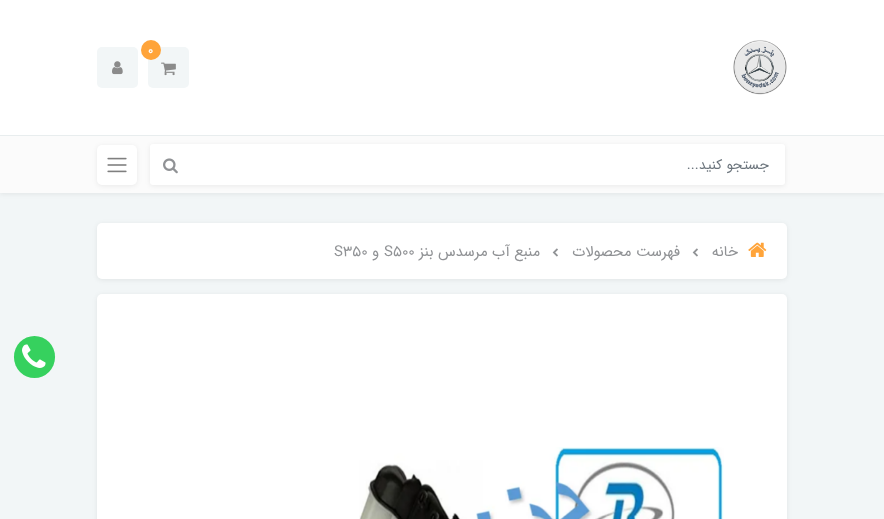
(async () => {
  const canvas = document.querySelector("canvas");
  canvas.width = 884;
  canvas.height = 519;
  const ctx = canvas.getContext("2d");
  ctx.miterLimit = 4;
  ctx.fontKerning = "normal";
  async function loadImage(src) {
    const img = new Image();
    img.src = src;
    await img.decode();
    return img;
  }

  ctx.fillStyle = "#f2f6f7";
  ctx.fillRect(0, 0, 884, 519);
  ctx.fillStyle = "rgba(0, 0, 0, 0.07)";
  ctx.filter = "blur(2.5px)";
  ctx.beginPath();
  ctx.rect(0, 1, 884, 193);
  ctx.fill();
  ctx.filter = "none";
  ctx.fillStyle = "#ffffff";
  ctx.fillRect(0, 0, 884, 135);
  ctx.drawImage(await loadImage("img/1.png"), 733, 40, 54, 55);
  ctx.fillStyle = "#f2f6f7";
  ctx.beginPath();
  ctx.roundRect(148, 47, 41, 41, 5);
  ctx.fill();
  ctx.fillStyle = "#ffa43a";
  ctx.beginPath();
  ctx.arc(151, 50, 10, 0, Math.PI * 2);
  ctx.fill();
  ctx.drawImage(await loadImage("img/2.png"), 161, 62, 15, 14);
  ctx.fillStyle = "#f2f6f7";
  ctx.beginPath();
  ctx.roundRect(97, 47, 41, 41, 5);
  ctx.fill();
  ctx.drawImage(await loadImage("img/3.png"), 112, 61, 11, 14);
  ctx.fillStyle = "#fbfbfb";
  ctx.fillRect(0, 136, 884, 57);
  ctx.fillStyle = "#e8edee";
  ctx.fillRect(0, 135, 884, 1);
  ctx.fillStyle = "rgba(0, 0, 0, 0.07)";
  ctx.filter = "blur(2.5px)";
  ctx.beginPath();
  ctx.roundRect(150, 145, 635, 41, 3);
  ctx.fill();
  ctx.filter = "none";
  ctx.fillStyle = "#ffffff";
  ctx.beginPath();
  ctx.roundRect(150, 144, 635, 41, 3);
  ctx.fill();
  ctx.drawImage(await loadImage("img/4.png"), 163, 158, 15, 16);
  ctx.fillStyle = "rgba(0, 0, 0, 0.07)";
  ctx.filter = "blur(2.5px)";
  ctx.beginPath();
  ctx.roundRect(97, 146, 40, 40, 5);
  ctx.fill();
  ctx.filter = "none";
  ctx.fillStyle = "#ffffff";
  ctx.beginPath();
  ctx.roundRect(97, 145, 40, 40, 5);
  ctx.fill();
  ctx.drawImage(await loadImage("img/5.png"), 107, 157, 20, 16);
  ctx.fillStyle = "rgba(0, 0, 0, 0.07)";
  ctx.filter = "blur(2.5px)";
  ctx.beginPath();
  ctx.roundRect(97, 224, 690, 56, 5);
  ctx.fill();
  ctx.filter = "none";
  ctx.fillStyle = "#ffffff";
  ctx.beginPath();
  ctx.roundRect(97, 223, 690, 56, 5);
  ctx.fill();
  ctx.drawImage(await loadImage("img/6.png"), 748, 242, 19, 15);
  ctx.drawImage(await loadImage("img/7.png"), 692, 248, 6, 9);
  ctx.drawImage(await loadImage("img/7.png"), 552, 248, 6, 9);
  ctx.fillStyle = "rgba(0, 0, 0, 0.07)";
  ctx.filter = "blur(2.5px)";
  ctx.beginPath();
  ctx.roundRect(97, 295, 690, 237, 5);
  ctx.fill();
  ctx.filter = "none";
  ctx.fillStyle = "#ffffff";
  ctx.beginPath();
  ctx.roundRect(97, 294, 690, 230, 5);
  ctx.fill();
  ctx.drawImage(await loadImage("img/8.png"), 359, 447, 365, 72);
  ctx.fillStyle = "#36d15e";
  ctx.beginPath();
  ctx.roundRect(14, 336, 41, 42, 20.5);
  ctx.fill();
  ctx.drawImage(await loadImage("img/9.png"), 22, 344, 24, 24);
  ctx.font = "bold 12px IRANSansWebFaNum";
  ctx.fillStyle = "#ffffff";
  ctx.fillText("0", 148, 54);
  ctx.direction = "rtl";
  ctx.font = "14px IRANSansWebFaNum";
  ctx.fillStyle = "#6c757d";
  ctx.fillText("جستجو کنید...", 769, 169);
  ctx.font = "15px IRANSansWebFaNum";
  ctx.fillStyle = "#909295";
  for (const [text, x, y] of [
    ["خانه", 738, 256],
    ["فهرست محصولات", 680, 256],
    ["منبع آب مرسدس بنز", 540, 256],
  ]) {
    ctx.fillText(text, x, y);
  }
  ctx.direction = "ltr";
  ctx.fillText("S500", 384, 256);
  ctx.direction = "rtl";
  ctx.fillText("و", 379, 256);
  ctx.direction = "ltr";
  ctx.fillText("S350", 334, 256);
})();
